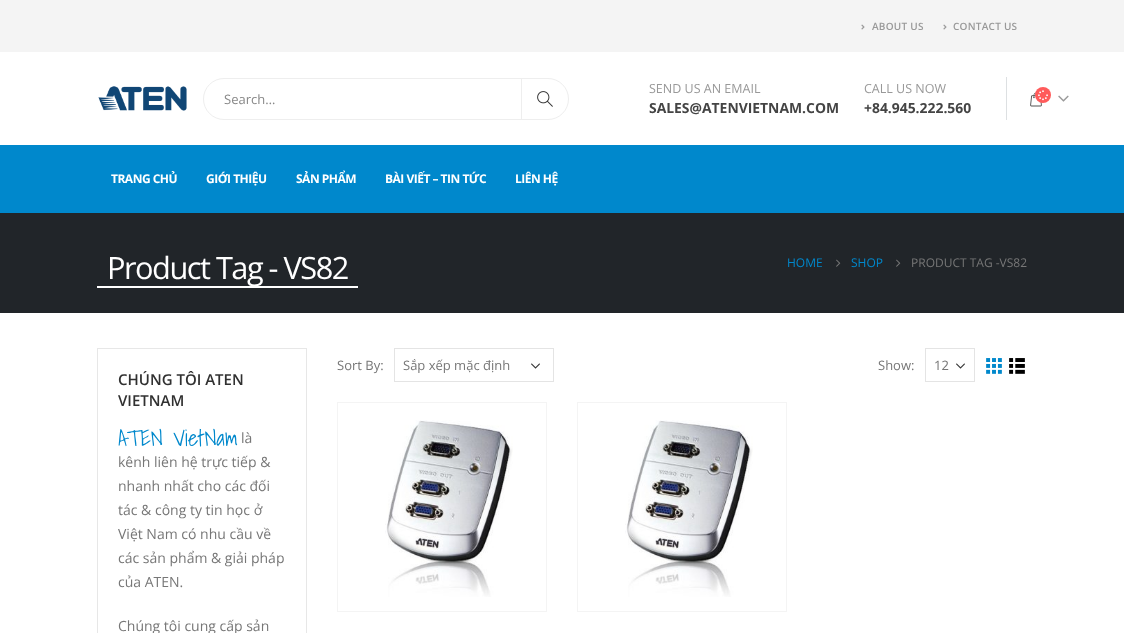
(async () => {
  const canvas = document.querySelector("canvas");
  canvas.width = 1124;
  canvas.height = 633;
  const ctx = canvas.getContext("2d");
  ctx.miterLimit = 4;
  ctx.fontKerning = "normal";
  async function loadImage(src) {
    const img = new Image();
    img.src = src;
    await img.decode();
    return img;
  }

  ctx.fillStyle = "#ffffff";
  ctx.fillRect(0, 0, 1124, 633);
  ctx.fillStyle = "#f4f4f4";
  ctx.fillRect(0, 0, 1124, 52);
  ctx.drawImage(await loadImage("img/1.png"), 861, 24, 4, 6);
  ctx.drawImage(await loadImage("img/1.png"), 943, 24, 4, 6);
  ctx.drawImage(await loadImage("img/2.png"), 98, 86, 89, 25);
  ctx.beginPath();
  ctx.roundRect(203.5, 78.5, 365, 41, 20.5);
  ctx.strokeStyle = "#eeeeee";
  ctx.stroke();
  ctx.fillStyle = "#eeeeee";
  ctx.fillRect(521, 79, 1, 40);
  ctx.drawImage(await loadImage("img/3.png"), 537, 91, 16, 16);
  ctx.fillStyle = "#dde0e2";
  ctx.fillRect(1006, 77, 1, 43);
  ctx.drawImage(await loadImage("img/5.png"), 1030, 92, 12, 15);
  ctx.fillStyle = "#ff5b5b";
  ctx.beginPath();
  ctx.arc(1043, 95, 8, 0, Math.PI * 2);
  ctx.fill();
  ctx.drawImage(await loadImage("img/4.png"), 1038, 90, 10, 11);
  ctx.drawImage(await loadImage("img/6.png"), 1058, 95, 11, 7);
  for (const [x, y, w, h, color] of [
    [0, 145, 1124, 68, "#0088cc"],
    [0, 213, 1124, 100, "#212529"],
    [97, 286, 261, 2, "#ffffff"],
  ]) {
    ctx.fillStyle = color;
    ctx.fillRect(x, y, w, h);
  }
  ctx.drawImage(await loadImage("img/7.png"), 836, 259, 5, 8);
  ctx.drawImage(await loadImage("img/7.png"), 896, 259, 5, 8);
  ctx.drawImage(await loadImage("img/8.png"), 531, 363, 9, 6);
  ctx.strokeStyle = "#e4e4e4";
  ctx.strokeRect(394.5, 348.5, 159, 33);
  ctx.drawImage(await loadImage("img/8.png"), 956, 363, 9, 6);
  ctx.strokeRect(925.5, 348.5, 49, 33);
  ctx.drawImage(await loadImage("img/9.png"), 986, 358, 16, 16);
  ctx.drawImage(await loadImage("img/10.png"), 1009, 358, 16, 16);
  ctx.strokeStyle = "#f4f4f4";
  ctx.strokeRect(337.5, 402.5, 209, 209);
  ctx.drawImage(await loadImage("img/11.png"), 385, 420, 128, 177);
  ctx.strokeRect(577.5, 402.5, 209, 209);
  ctx.drawImage(await loadImage("img/12.png"), 625, 420, 128, 177);
  ctx.strokeStyle = "#e7e7e7";
  ctx.strokeRect(97.5, 348.5, 209, 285);
  ctx.letterSpacing = "0.25px";
  ctx.font = "600 10px Open Sans";
  ctx.fillStyle = "#999999";
  ctx.fillText("ABOUT US", 872, 30);
  ctx.fillText("CONTACT US", 953, 30);
  ctx.letterSpacing = "0px";
  ctx.font = "13px Open Sans";
  ctx.fillStyle = "#888888";
  ctx.fillText("Search…", 224, 104);
  ctx.font = "12.5px Open Sans";
  ctx.fillStyle = "#999999";
  ctx.fillText("SEND US AN EMAIL", 649, 93);
  ctx.font = "bold 13.9px Open Sans";
  ctx.fillStyle = "#444444";
  ctx.fillText("SALES@ATENVIETNAM.COM", 649, 113);
  ctx.font = "12.5px Open Sans";
  ctx.fillStyle = "#999999";
  ctx.fillText("CALL US NOW", 864, 93);
  ctx.font = "bold 13.9px Open Sans";
  ctx.fillStyle = "#444444";
  ctx.fillText("+84.945.222.560", 864, 113);
  ctx.letterSpacing = "-0.5px";
  ctx.font = "bold 12px Open Sans";
  ctx.fillStyle = "#ffffff";
  for (const [text, x, y] of [
    ["TRANG CHỦ", 111, 183],
    ["GIỚI THIỆU", 206, 183],
    ["SẢN PHẨM", 296, 183],
    ["BÀI VIẾT – TIN TỨC", 385, 183],
    ["LIÊN HỆ", 515, 183],
  ]) {
    ctx.fillText(text, x, y);
  }
  ctx.letterSpacing = "-1.5px";
  ctx.font = "30.75px Open Sans";
  ctx.fillText("Product Tag - VS82", 107, 279);
  ctx.letterSpacing = "0px";
  ctx.font = "12px Open Sans";
  ctx.fillStyle = "#0088cc";
  ctx.fillText("HOME", 787, 267);
  ctx.fillText("SHOP", 851, 267);
  ctx.fillStyle = "#777777";
  ctx.fillText("PRODUCT TAG -VS82", 911, 267);
  ctx.font = "13px Open Sans";
  for (const [text, x, y] of [
    ["Sort By:", 337, 370],
    ["Sắp xếp mặc định", 403, 370],
    ["Show:", 878, 370],
    ["12", 934, 370],
  ]) {
    ctx.fillText(text, x, y);
  }
  ctx.font = "600 15px Open Sans";
  ctx.fillStyle = "#313131";
  ctx.fillText("CHÚNG TÔI ATEN", 118, 385);
  ctx.fillText("VIETNAM", 118, 406);
  ctx.font = "300 22.5px Shadows Into Light";
  ctx.fillStyle = "#0088cc";
  ctx.fillText("ATEN VietNam", 118, 446);
  ctx.font = "14px Open Sans";
  ctx.fillStyle = "#777777";
  for (const [text, x, y] of [
    ["là", 241, 443],
    ["kênh liên hệ trực tiếp &", 118, 467],
    ["nhanh nhất cho các đối", 118, 491],
    ["tác & công ty tin học ở", 118, 515],
    ["Việt Nam có nhu cầu về", 118, 539],
    ["các sản phẩm & giải pháp", 118, 563],
    ["của ATEN.", 118, 587],
    ["Chúng tôi cung cấp sản", 118, 631],
  ]) {
    ctx.fillText(text, x, y);
  }
})();
